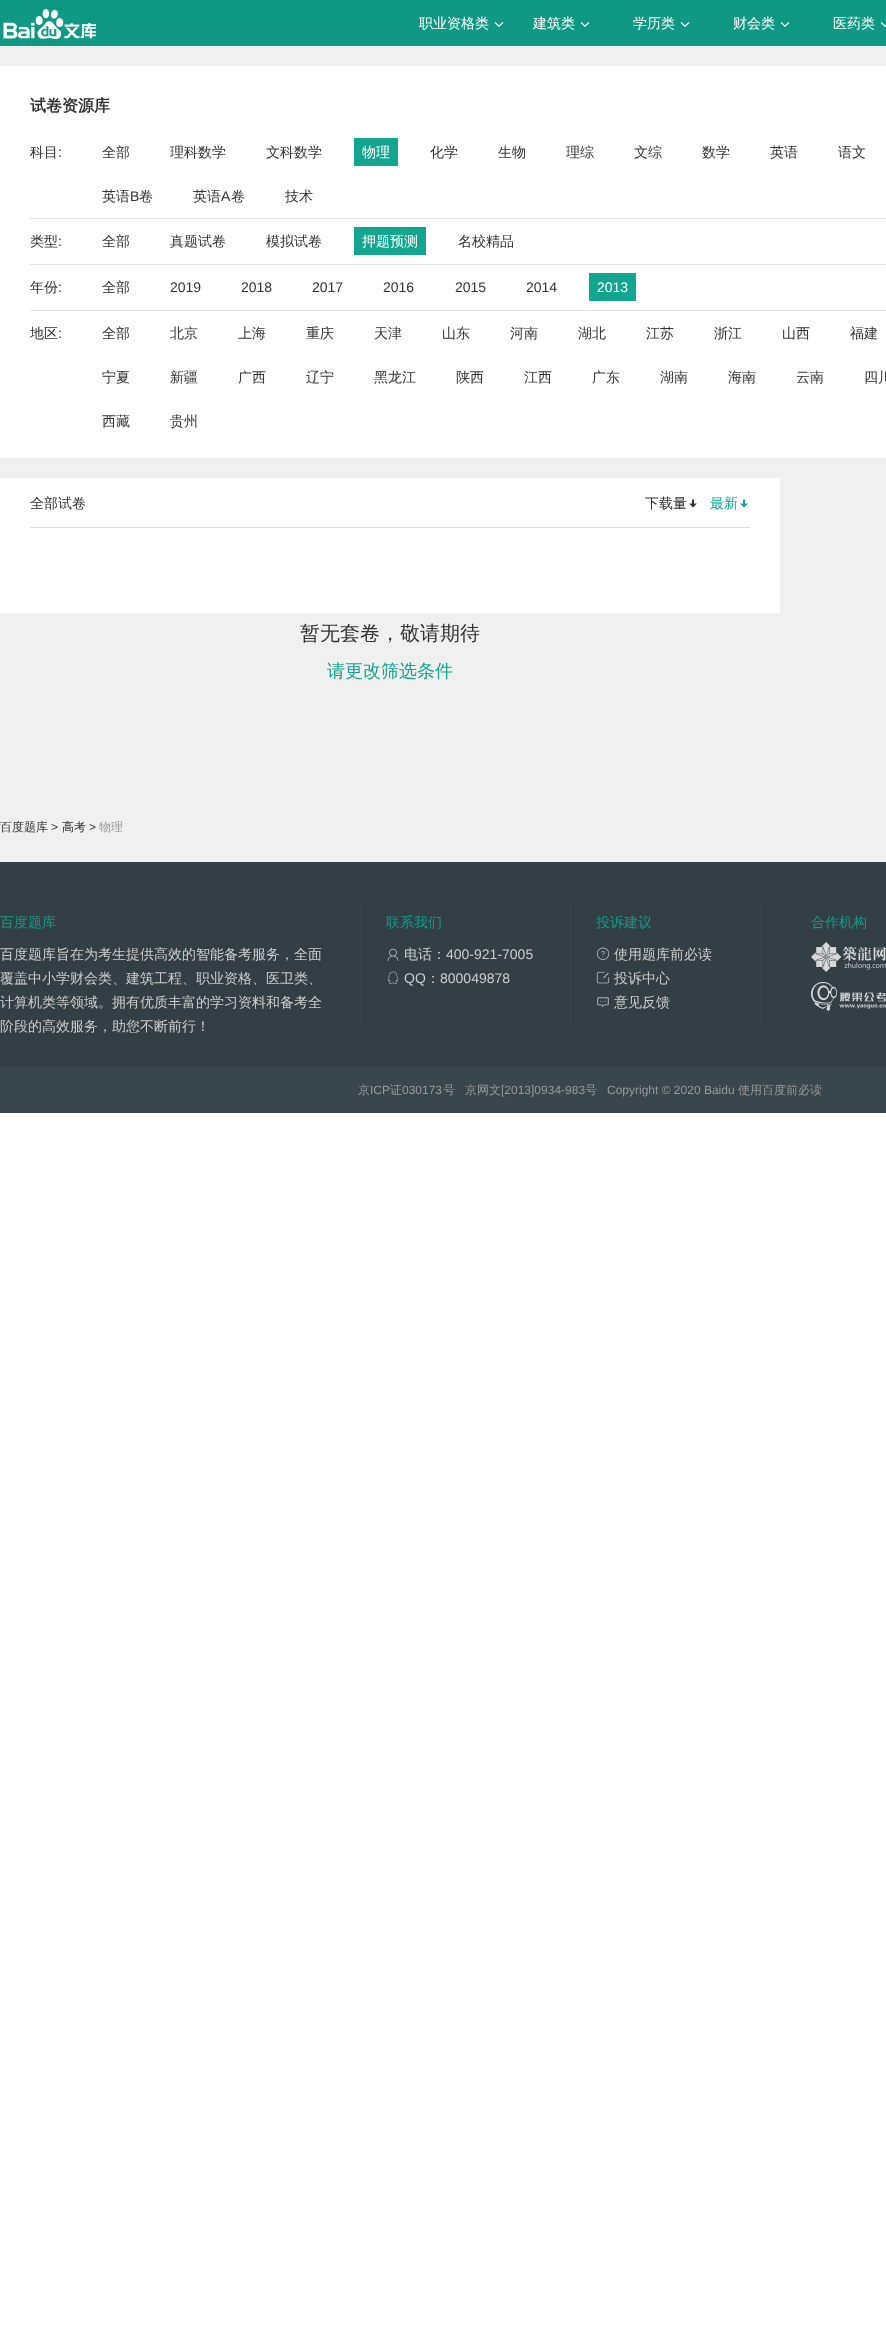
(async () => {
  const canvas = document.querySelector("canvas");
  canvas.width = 886;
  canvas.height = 2352;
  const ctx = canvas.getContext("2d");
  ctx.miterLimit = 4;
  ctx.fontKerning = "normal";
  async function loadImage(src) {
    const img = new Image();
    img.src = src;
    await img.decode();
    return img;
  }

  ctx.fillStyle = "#ffffff";
  ctx.fillRect(0, 0, 886, 2352);
  ctx.fillStyle = "#0f9982";
  ctx.fillRect(0, 0, 886, 46);
  ctx.drawImage(await loadImage("img/1.png"), 3, 9, 93, 30);
  ctx.drawImage(await loadImage("img/2.png"), 494, 22, 10, 5);
  ctx.drawImage(await loadImage("img/2.png"), 580, 22, 10, 5);
  ctx.drawImage(await loadImage("img/2.png"), 680, 22, 10, 5);
  ctx.drawImage(await loadImage("img/2.png"), 780, 22, 10, 5);
  ctx.drawImage(await loadImage("img/3.png"), 880, 22, 6, 5);
  for (const [x, y, w, h, color] of [
    [0, 46, 886, 816, "#f0f0f0"],
    [0, 66, 886, 392, "#ffffff"],
    [30, 218, 856, 1, "#e5e5e5"],
    [354, 138, 44, 28, "#11a68d"],
    [30, 264, 856, 1, "#e5e5e5"],
    [354, 227, 72, 28, "#11a68d"],
    [30, 310, 856, 1, "#e5e5e5"],
    [589, 273, 47, 28, "#11a68d"],
    [0, 478, 780, 135, "#ffffff"],
    [30, 527, 720, 1, "#e0e0e0"],
  ]) {
    ctx.fillStyle = color;
    ctx.fillRect(x, y, w, h);
  }
  ctx.drawImage(await loadImage("img/4.png"), 689, 499, 8, 9);
  ctx.drawImage(await loadImage("img/5.png"), 740, 499, 8, 9);
  for (const [x, y, w, h, color] of [
    [0, 862, 886, 205, "#343f45"],
    [360, 902, 1, 125, "#39464d"],
    [570, 902, 1, 125, "#39464d"],
  ]) {
    ctx.fillStyle = color;
    ctx.fillRect(x, y, w, h);
  }
  ctx.drawImage(await loadImage("img/6.png"), 387, 948, 12, 13);
  ctx.drawImage(await loadImage("img/7.png"), 387, 971, 12, 13);
  ctx.fillRect(760, 902, 1, 125);
  ctx.drawImage(await loadImage("img/8.png"), 596, 947, 14, 13);
  ctx.drawImage(await loadImage("img/9.png"), 596, 971, 14, 13);
  ctx.drawImage(await loadImage("img/10.png"), 597, 997, 12, 10);
  ctx.drawImage(await loadImage("img/11.png"), 811, 942, 75, 30);
  ctx.drawImage(await loadImage("img/12.png"), 811, 982, 75, 29);
  ctx.fillRect(0, 1067, 886, 46);
  ctx.font = "500 14px WenQuanYi Zen Hei";
  ctx.fillStyle = "#ffffff";
  for (const [text, x, y] of [
    ["职业资格类", 419, 28],
    ["建筑类", 533, 28],
    ["学历类", 633, 28],
    ["财会类", 733, 28],
    ["医药类", 833, 28],
  ]) {
    ctx.fillText(text, x, y);
  }
  ctx.font = "bold 16px WenQuanYi Zen Hei";
  ctx.fillStyle = "#333333";
  ctx.fillText("试卷资源库", 30, 111);
  ctx.font = "500 14px WenQuanYi Zen Hei";
  ctx.fillText("科目", 30, 157);
  ctx.font = "14px Liberation Sans";
  ctx.fillText(":", 58, 157);
  ctx.font = "500 14px WenQuanYi Zen Hei";
  for (const [text, x, y] of [
    ["全部", 102, 157],
    ["理科数学", 170, 157],
    ["文科数学", 266, 157],
  ]) {
    ctx.fillText(text, x, y);
  }
  ctx.fillStyle = "#ffffff";
  ctx.fillText("物理", 362, 157);
  ctx.fillStyle = "#333333";
  for (const [text, x, y] of [
    ["化学", 430, 157],
    ["生物", 498, 157],
    ["理综", 566, 157],
    ["文综", 634, 157],
    ["数学", 702, 157],
    ["英语", 770, 157],
    ["语文", 838, 157],
    ["英语", 102, 201],
  ]) {
    ctx.fillText(text, x, y);
  }
  ctx.font = "14px Liberation Sans";
  ctx.fillText("B", 130, 201);
  ctx.font = "500 14px WenQuanYi Zen Hei";
  ctx.fillText("卷", 139, 201);
  ctx.fillText("英语", 193, 201);
  ctx.font = "14px Liberation Sans";
  ctx.fillText("A", 221, 201);
  ctx.font = "500 14px WenQuanYi Zen Hei";
  for (const [text, x, y] of [
    ["卷", 231, 201],
    ["技术", 285, 201],
    ["类型", 30, 246],
  ]) {
    ctx.fillText(text, x, y);
  }
  ctx.font = "14px Liberation Sans";
  ctx.fillText(":", 58, 246);
  ctx.font = "500 14px WenQuanYi Zen Hei";
  for (const [text, x, y] of [
    ["全部", 102, 246],
    ["真题试卷", 170, 246],
    ["模拟试卷", 266, 246],
  ]) {
    ctx.fillText(text, x, y);
  }
  ctx.fillStyle = "#ffffff";
  ctx.fillText("押题预测", 362, 246);
  ctx.fillStyle = "#333333";
  ctx.fillText("名校精品", 458, 246);
  ctx.fillText("年份", 30, 292);
  ctx.font = "14px Liberation Sans";
  ctx.fillText(":", 58, 292);
  ctx.font = "500 14px WenQuanYi Zen Hei";
  ctx.fillText("全部", 102, 292);
  ctx.font = "14px Liberation Sans";
  for (const [text, x, y] of [
    ["2019", 170, 292],
    ["2018", 241, 292],
    ["2017", 312, 292],
    ["2016", 383, 292],
    ["2015", 455, 292],
    ["2014", 526, 292],
  ]) {
    ctx.fillText(text, x, y);
  }
  ctx.fillStyle = "#ffffff";
  ctx.fillText("2013", 597, 292);
  ctx.font = "500 14px WenQuanYi Zen Hei";
  ctx.fillStyle = "#333333";
  ctx.fillText("地区", 30, 338);
  ctx.font = "14px Liberation Sans";
  ctx.fillText(":", 58, 338);
  ctx.font = "500 14px WenQuanYi Zen Hei";
  for (const [text, x, y] of [
    ["全部", 102, 338],
    ["北京", 170, 338],
    ["上海", 238, 338],
    ["重庆", 306, 338],
    ["天津", 374, 338],
    ["山东", 442, 338],
    ["河南", 510, 338],
    ["湖北", 578, 338],
    ["江苏", 646, 338],
    ["浙江", 714, 338],
    ["山西", 782, 338],
    ["福建", 850, 338],
    ["宁夏", 102, 382],
    ["新疆", 170, 382],
    ["广西", 238, 382],
    ["辽宁", 306, 382],
    ["黑龙江", 374, 382],
    ["陕西", 456, 382],
    ["江西", 524, 382],
    ["广东", 592, 382],
    ["湖南", 660, 382],
    ["海南", 728, 382],
    ["云南", 796, 382],
    ["四川", 864, 382],
    ["西藏", 102, 426],
    ["贵州", 170, 426],
    ["全部试卷", 30, 508],
    ["下载量", 645, 508],
  ]) {
    ctx.fillText(text, x, y);
  }
  ctx.fillStyle = "#11a68d";
  ctx.fillText("最新", 710, 508);
  ctx.font = "500 20px WenQuanYi Zen Hei";
  ctx.fillStyle = "#333333";
  ctx.fillText("暂无套卷，敬请期待", 300, 640);
  ctx.font = "500 18px WenQuanYi Zen Hei";
  ctx.fillStyle = "#11a68d";
  ctx.fillText("请更改筛选条件", 327, 677);
  ctx.font = "500 12px WenQuanYi Zen Hei";
  ctx.fillStyle = "#333333";
  ctx.fillText("百度题库", 0, 831);
  ctx.font = "12px Liberation Sans";
  ctx.fillText(">", 51, 831);
  ctx.font = "500 12px WenQuanYi Zen Hei";
  ctx.fillText("高考", 62, 831);
  ctx.font = "12px Liberation Sans";
  ctx.fillText(">", 89, 831);
  ctx.font = "500 12px WenQuanYi Zen Hei";
  ctx.fillStyle = "#999999";
  ctx.fillText("物理", 99, 831);
  ctx.font = "500 14px WenQuanYi Zen Hei";
  ctx.fillStyle = "#149987";
  ctx.fillText("百度题库", 0, 927);
  ctx.fillStyle = "#cccccc";
  for (const [text, x, y] of [
    ["百度题库旨在为考生提供高效的智能备考服务，全面", 0, 959],
    ["覆盖中小学财会类、建筑工程、职业资格、医卫类、", 0, 983],
    ["计算机类等领域。拥有优质丰富的学习资料和备考全", 0, 1007],
    ["阶段的高效服务，助您不断前行！", 0, 1031],
  ]) {
    ctx.fillText(text, x, y);
  }
  ctx.fillStyle = "#149987";
  ctx.fillText("联系我们", 386, 927);
  ctx.fillStyle = "#cccccc";
  ctx.fillText("电话：", 404, 959);
  ctx.font = "14px Liberation Sans";
  ctx.fillText("400-921-7005", 446, 959);
  ctx.fillText("QQ", 404, 983);
  ctx.font = "500 14px WenQuanYi Zen Hei";
  ctx.fillText("：", 426, 983);
  ctx.font = "14px Liberation Sans";
  ctx.fillText("800049878", 440, 983);
  ctx.font = "500 14px WenQuanYi Zen Hei";
  ctx.fillStyle = "#149987";
  ctx.fillText("投诉建议", 596, 927);
  ctx.fillStyle = "#cccccc";
  for (const [text, x, y] of [
    ["使用题库前必读", 614, 959],
    ["投诉中心", 614, 983],
    ["意见反馈", 614, 1007],
  ]) {
    ctx.fillText(text, x, y);
  }
  ctx.fillStyle = "#149987";
  ctx.fillText("合作机构", 811, 927);
  ctx.font = "500 12px WenQuanYi Zen Hei";
  ctx.fillStyle = "#999999";
  ctx.fillText("京", 358, 1094);
  ctx.font = "12px Liberation Sans";
  ctx.fillText("ICP", 370, 1094);
  ctx.font = "500 12px WenQuanYi Zen Hei";
  ctx.fillText("证", 390, 1094);
  ctx.font = "12px Liberation Sans";
  ctx.fillText("030173", 402, 1094);
  ctx.font = "500 12px WenQuanYi Zen Hei";
  ctx.fillText("号", 443, 1094);
  ctx.fillText("京网文", 465, 1094);
  ctx.font = "12px Liberation Sans";
  ctx.fillText("[2013]0934-983", 501, 1094);
  ctx.font = "500 12px WenQuanYi Zen Hei";
  ctx.fillText("号", 585, 1094);
  ctx.font = "12px Liberation Sans";
  ctx.fillText("Copyright © 2020 Baidu", 607, 1094);
  ctx.font = "500 12px WenQuanYi Zen Hei";
  ctx.fillText("使用百度前必读", 738, 1094);
})();
